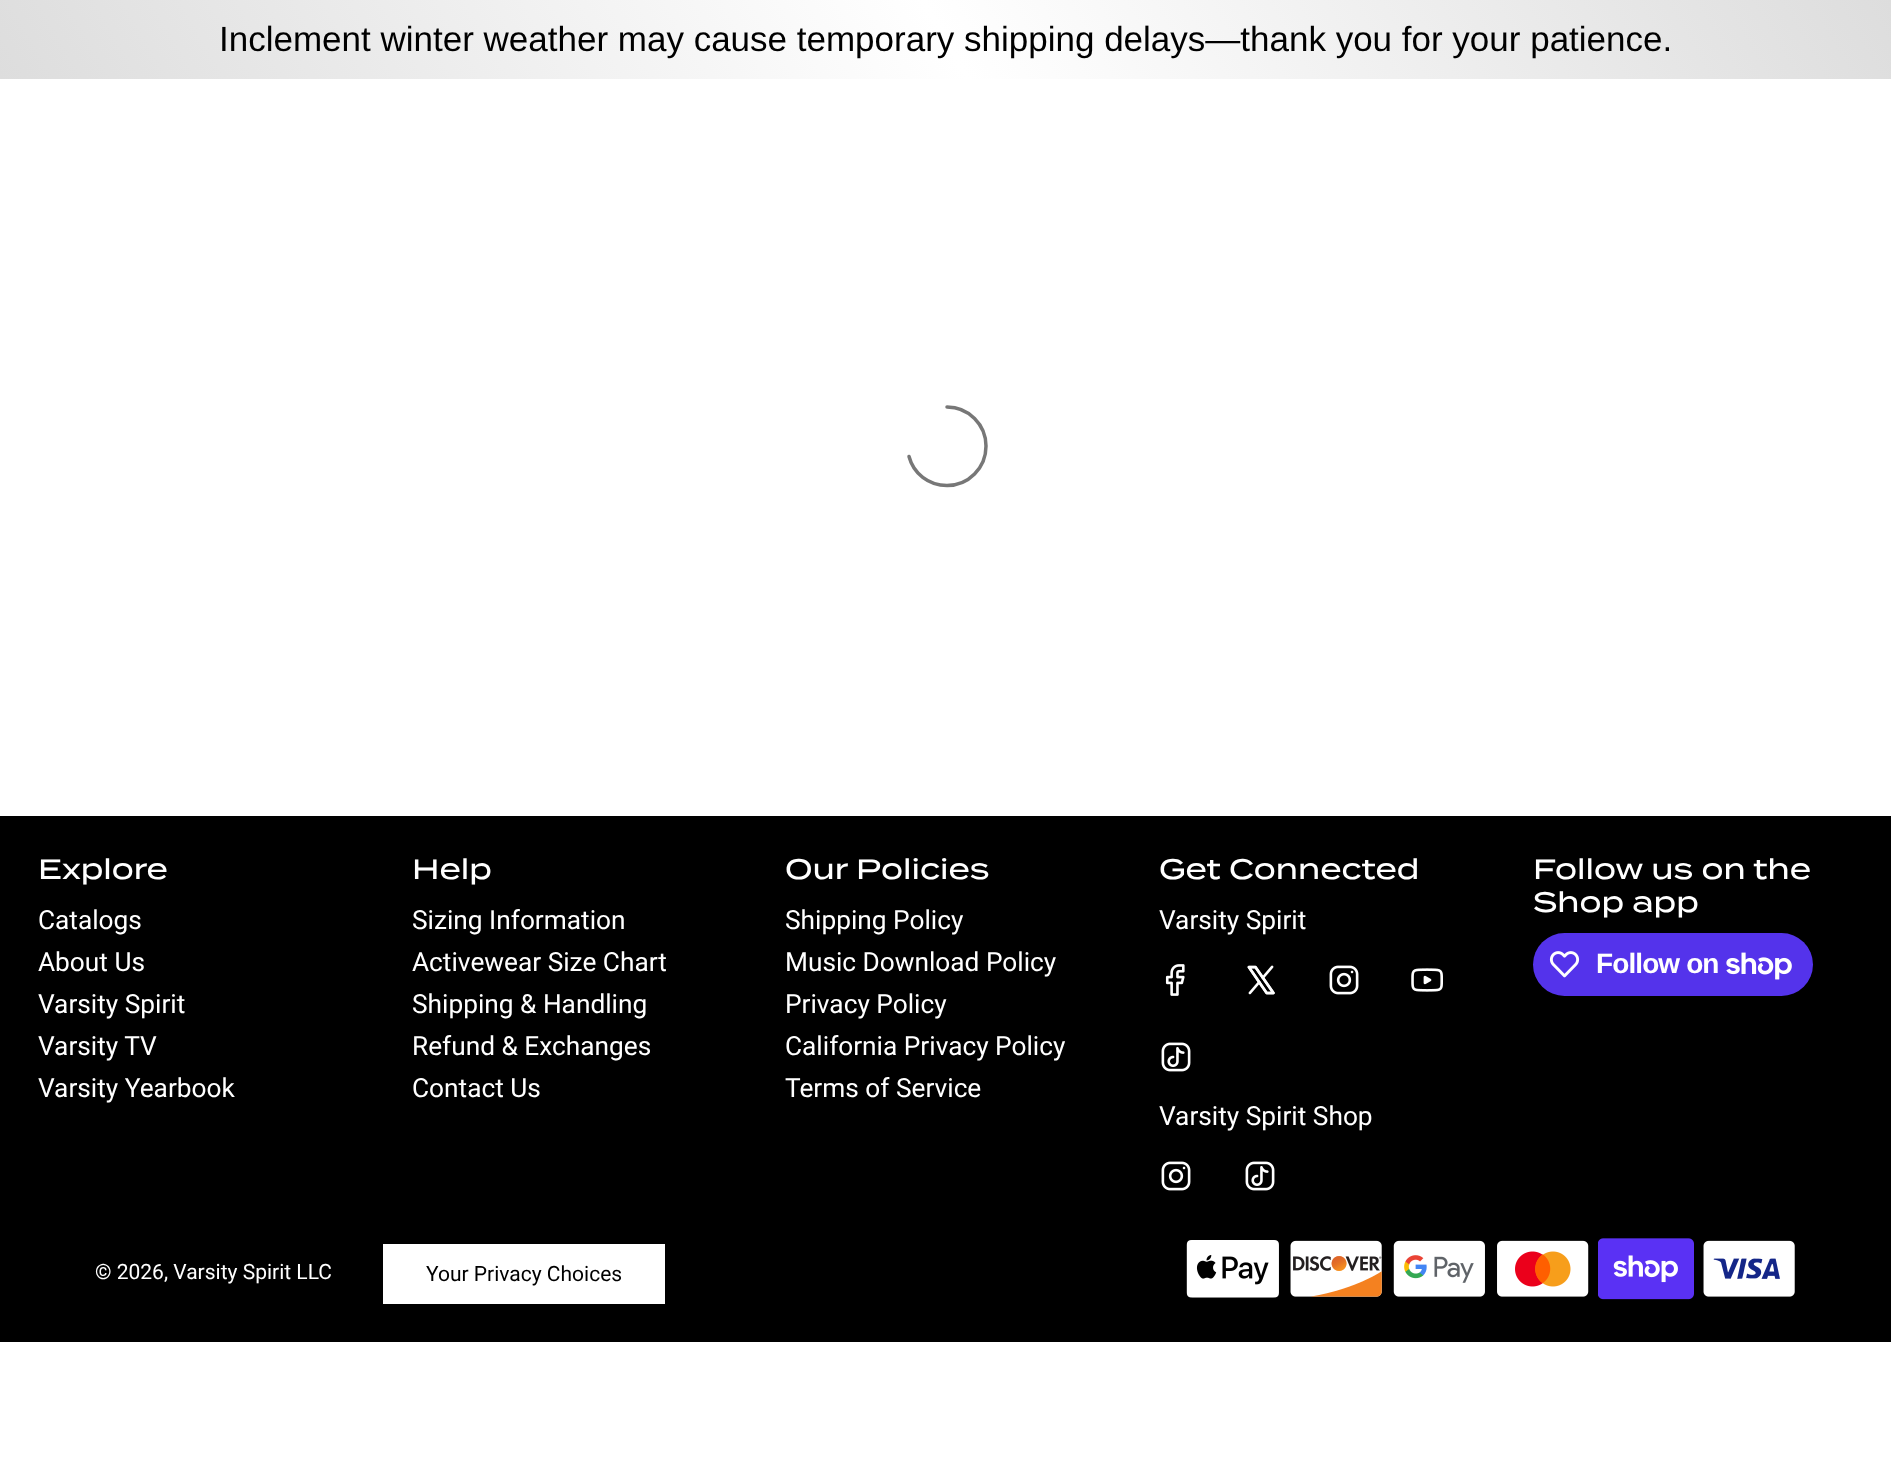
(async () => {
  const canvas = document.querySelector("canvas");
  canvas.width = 1891;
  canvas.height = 1474;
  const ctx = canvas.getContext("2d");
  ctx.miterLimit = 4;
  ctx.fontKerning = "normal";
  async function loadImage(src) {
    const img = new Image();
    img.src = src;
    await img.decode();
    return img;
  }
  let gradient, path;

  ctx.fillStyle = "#ffffff";
  ctx.fillRect(0, 0, 1891, 1474);
  gradient = ctx.createLinearGradient(219, 459, 1672, -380);
  gradient.addColorStop(0, "#dddddd");
  gradient.addColorStop(0.5, "#ffffff");
  gradient.addColorStop(1, "#dddddd");
  ctx.fillStyle = gradient;
  ctx.fillRect(0, 0, 1891, 79);
  path = new Path2D("M947 407C968.5 407 986 424.5 986 446C986 468 968.5 485.5 947 485.5C928.5 485.5 913.5 473.5 909 456.5");
  ctx.strokeStyle = "#777777";
  ctx.lineWidth = 3.5;
  ctx.lineCap = "round";
  ctx.stroke(path);
  ctx.fillStyle = "#000000";
  ctx.fillRect(0, 816, 1891, 526);
  ctx.drawImage(await loadImage("img/1.png"), 1165, 964, 20, 32);
  ctx.drawImage(await loadImage("img/2.png"), 1247, 965, 28, 30);
  ctx.drawImage(await loadImage("img/3.png"), 1329, 965, 30, 30);
  ctx.drawImage(await loadImage("img/4.png"), 1411, 968, 32, 24);
  ctx.drawImage(await loadImage("img/5.png"), 1161, 1042, 30, 30);
  ctx.drawImage(await loadImage("img/3.png"), 1161, 1161, 30, 30);
  ctx.drawImage(await loadImage("img/5.png"), 1245, 1161, 30, 30);
  ctx.fillStyle = "#5433eb";
  ctx.beginPath();
  ctx.roundRect(1533, 933, 280, 63, 31.5);
  ctx.fill();
  ctx.drawImage(await loadImage("img/6.png"), 1549, 951, 31, 27);
  ctx.drawImage(await loadImage("img/7.png"), 1726, 952, 66, 28);
  ctx.fillStyle = "#ffffff";
  ctx.fillRect(383, 1244, 282, 60);
  ctx.drawImage(await loadImage("img/8.png"), 1186, 1240, 93, 58);
  ctx.drawImage(await loadImage("img/9.png"), 1290, 1240, 92, 57);
  ctx.drawImage(await loadImage("img/10.png"), 1393, 1240, 92, 57);
  ctx.drawImage(await loadImage("img/11.png"), 1497, 1240, 92, 57);
  ctx.drawImage(await loadImage("img/12.png"), 1598, 1238, 96, 62);
  ctx.drawImage(await loadImage("img/13.png"), 1703, 1240, 92, 57);
  ctx.font = "35px Liberation Sans";
  ctx.fillStyle = "#000000";
  ctx.fillText("Inclement winter weather may cause temporary shipping delays—thank you for your patience.", 219, 51);
  ctx.font = "500 28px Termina";
  ctx.fillStyle = "#ffffff";
  ctx.fillText("Explore", 38, 879);
  ctx.font = "26.25px Roboto";
  for (const [text, x, y] of [
    ["Catalogs", 38, 929],
    ["About Us", 38, 971],
    ["Varsity Spirit", 38, 1013],
    ["Varsity TV", 38, 1055],
    ["Varsity Yearbook", 38, 1097],
  ]) {
    ctx.fillText(text, x, y);
  }
  ctx.font = "500 28px Termina";
  ctx.fillText("Help", 412, 879);
  ctx.font = "26.25px Roboto";
  for (const [text, x, y] of [
    ["Sizing Information", 412, 929],
    ["Activewear Size Chart", 412, 971],
    ["Shipping & Handling", 412, 1013],
    ["Refund & Exchanges", 412, 1055],
    ["Contact Us", 412, 1097],
  ]) {
    ctx.fillText(text, x, y);
  }
  ctx.font = "500 28px Termina";
  ctx.fillText("Our Policies", 785, 879);
  ctx.font = "26.25px Roboto";
  for (const [text, x, y] of [
    ["Shipping Policy", 785, 929],
    ["Music Download Policy", 785, 971],
    ["Privacy Policy", 785, 1013],
    ["California Privacy Policy", 785, 1055],
    ["Terms of Service", 785, 1097],
  ]) {
    ctx.fillText(text, x, y);
  }
  ctx.font = "500 28px Termina";
  ctx.fillText("Get Connected", 1159, 879);
  ctx.font = "26.25px Roboto";
  ctx.fillText("Varsity Spirit", 1159, 929);
  ctx.fillText("Varsity Spirit Shop", 1159, 1125);
  ctx.font = "500 28px Termina";
  ctx.fillText("Follow us on the", 1533, 879);
  ctx.fillText("Shop app", 1533, 912);
  ctx.letterSpacing = "-0.9px";
  ctx.font = "bold 28px Liberation Sans";
  ctx.fillText("Follow on", 1596, 973);
  ctx.letterSpacing = "0px";
  ctx.font = "21px Roboto";
  ctx.fillText("© 2026, Varsity Spirit LLC", 95, 1279);
  ctx.fillStyle = "#000000";
  ctx.fillText("Your Privacy Choices", 426, 1281);
})();
